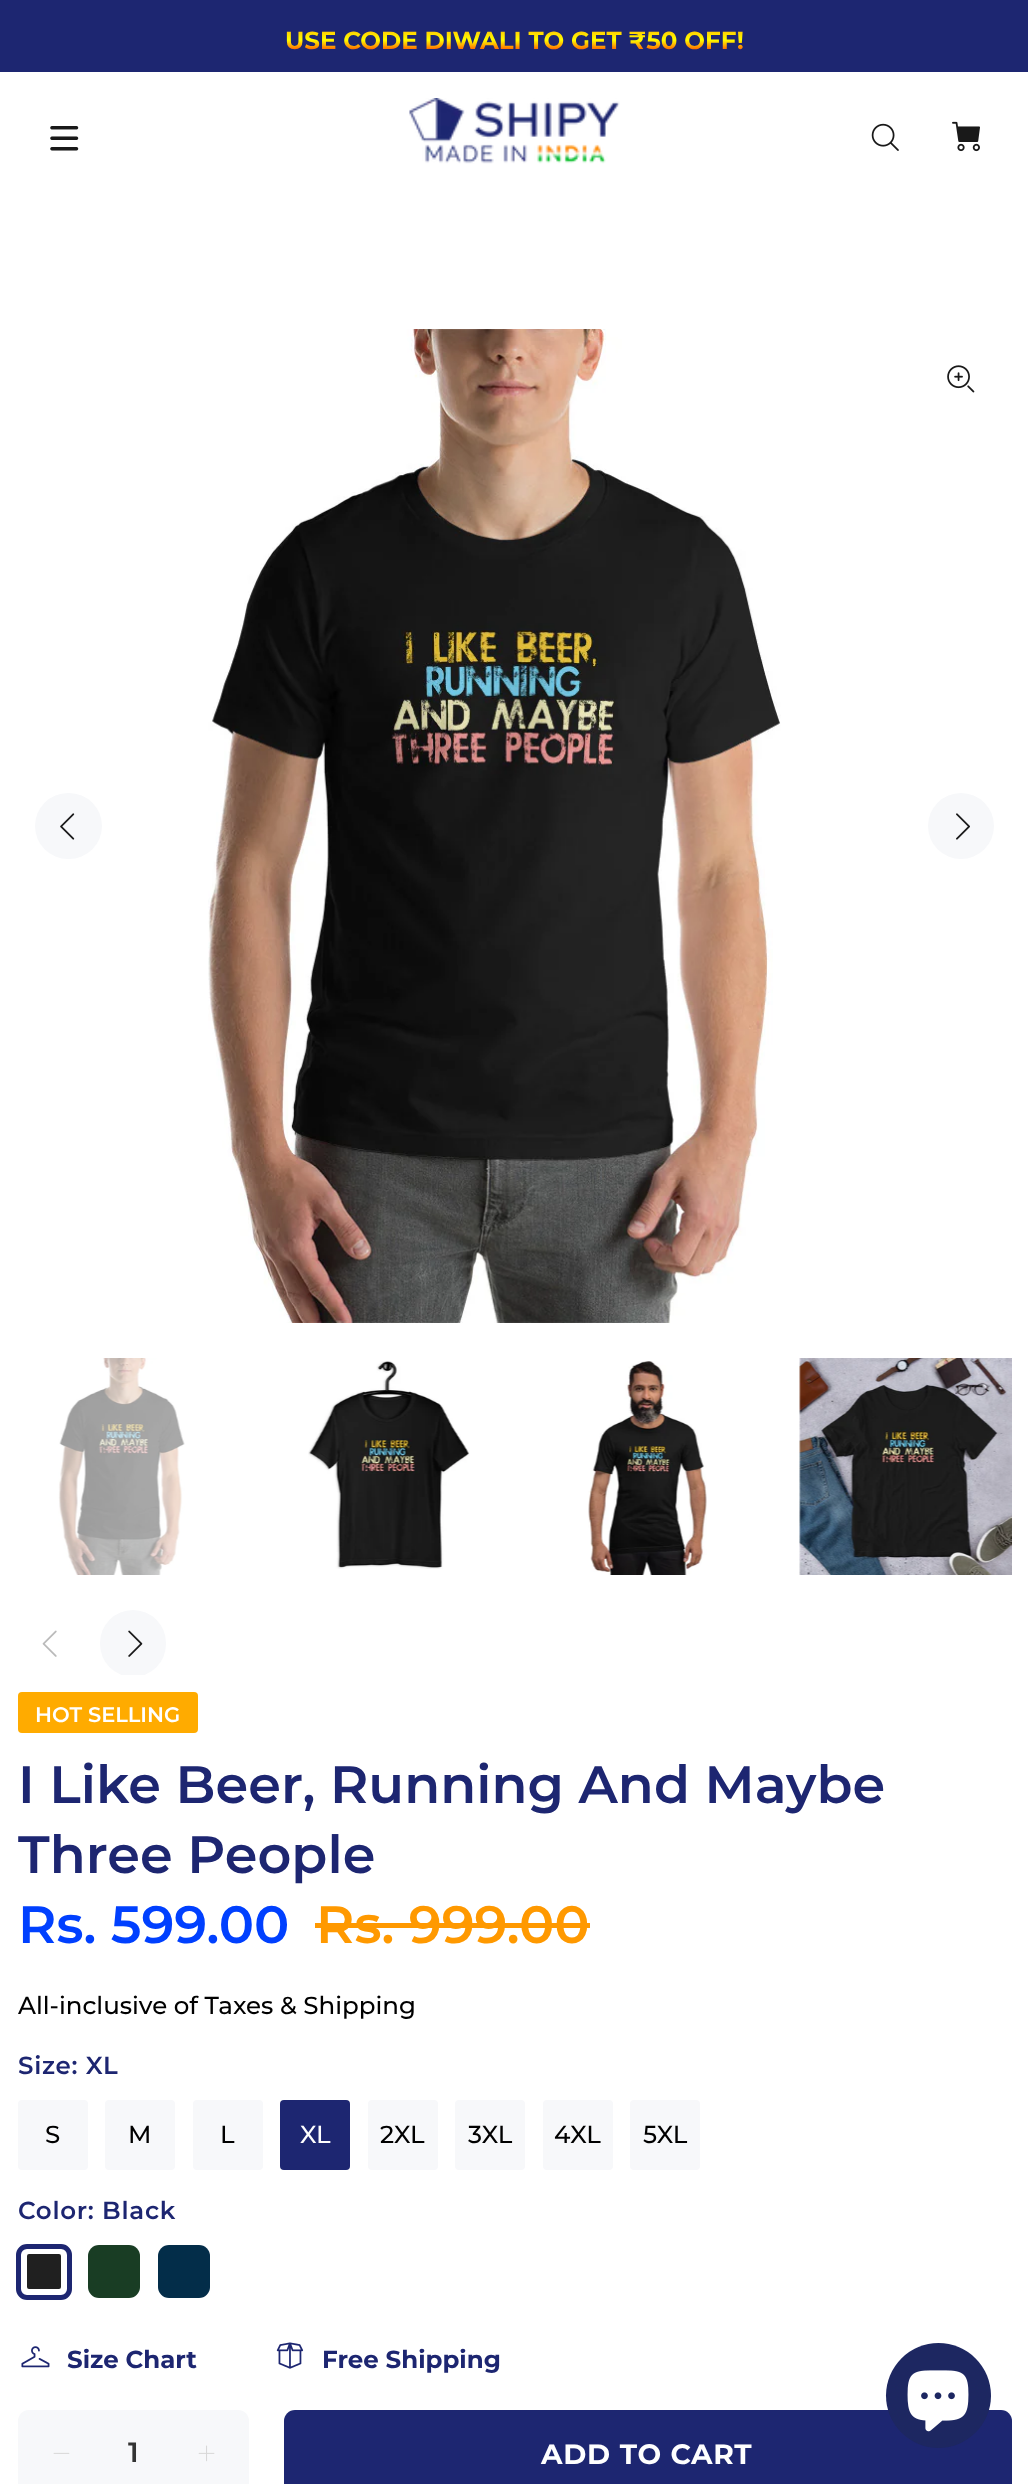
(async () => {
const canvas = document.querySelector("canvas")
canvas.width = 1028
canvas.height = 2484
const c = canvas.getContext("2d")
c.miterLimit = 4
c.fontKerning = "normal"
function T(s,x,y){c.fillText(s,x,y)}
function R(x,y,w,h){c.fillRect(x,y,w,h)}
function Q(x,y,w,h,r){c.beginPath();c.roundRect(x,y,w,h,r);c.fill()}
async function I(src,x,y,w,h){const img=new Image();img.src=src;await img.decode();c.drawImage(img,x,y,w,h)}
let gradient
c.fillStyle="#fff"
R(0,0,1028,2484)
c.fillStyle="#1d2671"
R(0,0,1028,72)
c.font="bold 24.5px Montserrat"
gradient = c.createLinearGradient(514,24,514,56)
gradient.addColorStop(0,"#ffa500")
gradient.addColorStop(.5,"#ff0")
gradient.addColorStop(1,"#f00")
c.fillStyle = gradient
T("USE CODE DIWALI TO GET ₹50 OFF!",285,49)
await I("1.png",50,126,29,25)
await I("2.png",409,98,211,66)
await I("3.png",871,123,28,28)
await I("4.png",952,121,28,31)
await I("5.png",208,329,573,994)
await I("6.png",947,365,28,28)
c.fillStyle="#f7f8fa"
Q(35,793,67,66,33)
await I("7.png",60,813,15,27)
c.beginPath()
c.arc(961,826,33,0,7)
c.fill()
await I("8.png",956,813,14,27)
await I("9.png",58,1358,127,217)
await I("10.png",308,1361,162,208)
await I("11.png",588,1361,119,214)
await I("12.png",799,1358,213,217)
await I("13.png",42,1630,15,27)
c.save()
c.beginPath()
c.rect(18,329,994,1346)
c.clip()
Q(100,1610,66,67,33)
c.restore()
await I("14.png",128,1630,15,27)
c.fillStyle="#ffab00"
Q(18,1692,180,41,4)
c.font="600 21px Montserrat"
c.fillStyle="#fff"
T("HOT SELLING",35,1722)
c.letterSpacing="0.05px"
c.font="600 52.5px Montserrat"
c.fillStyle="#1d2671"
T("I Like Beer, Running And Maybe",18,1803)
T("Three People",18,1873)
c.letterSpacing="0px"
c.fillStyle="#0040ff"
T("Rs. 599.00",18,1943)
c.fillStyle="#f90"
T("Rs. 999.00",316,1943)
R(315,1923,275,5)
c.font="500 24.5px Montserrat"
c.fillStyle="#000"
T("All-inclusive of Taxes & Shipping",18,2014)
c.letterSpacing="0.75px"
c.font="600 24.5px Montserrat"
c.fillStyle="#1d2671"
T("Size: XL",18,2074)
c.fillStyle="#f7f8fa"
Q(18,2100,70,70,4)
c.letterSpacing="0px"
c.font="500 24.5px Montserrat"
c.fillStyle="#000"
T("S",45,2143)
c.fillStyle="#f7f8fa"
Q(105,2100,70,70,4)
c.fillStyle="#000"
T("M",128,2143)
c.fillStyle="#f7f8fa"
Q(193,2100,70,70,4)
c.fillStyle="#000"
T("L",220,2143)
c.fillStyle="#1d2671"
Q(280,2100,70,70,4)
c.fillStyle="#fff"
T("XL",300,2143)
c.fillStyle="#f7f8fa"
Q(368,2100,70,70,4)
c.fillStyle="#000"
T("2XL",380,2143)
c.fillStyle="#f7f8fa"
Q(455,2100,70,70,4)
c.fillStyle="#000"
T("3XL",468,2143)
c.fillStyle="#f7f8fa"
Q(543,2100,70,70,4)
c.fillStyle="#000"
T("4XL",554,2143)
c.fillStyle="#f7f8fa"
Q(630,2100,70,70,4)
c.fillStyle="#000"
T("5XL",643,2143)
c.letterSpacing="0.75px"
c.font="600 24.5px Montserrat"
c.fillStyle="#1d2671"
T("Color: Black",18,2219)
c.fillStyle="#202020"
c.beginPath()
c.roundRect(22.5,2249.5,43,44,6.5)
c.fill()
c.strokeStyle="#fff"
c.lineWidth=9
c.stroke()
c.beginPath()
c.roundRect(18.5,2246.5,51,51,8.5)
c.strokeStyle="#1d2671"
c.lineWidth=5
c.stroke()
c.fillStyle="#193d24"
Q(88,2245,52,53,11)
c.fillStyle="#032d49"
Q(158,2245,52,53,11)
await I("15.png",21,2346,29,22)
c.letterSpacing="0px"
c.font="bold 24.5px Montserrat"
c.fillStyle="#1d2671"
T("Size Chart",67,2368)
await I("16.png",276,2342,28,27)
T("Free Shipping",322,2368)
c.fillStyle="#f7f8fa"
Q(18,2410,231,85,11)
await I("17.png",53,2452,17,2)
c.font="600 28px Montserrat"
c.fillStyle="#333"
T("1",128,2462)
await I("18.png",198,2445,17,17)
c.fillStyle="#1d2671"
Q(284,2410,728,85,11)
c.letterSpacing="0.75px"
c.font="bold 28px Montserrat"
c.fillStyle="#fff"
T("ADD TO CART",541,2464)
c.fillStyle="#1d2761"
c.beginPath()
c.arc(938.5,2395.5,52.5,0,7)
c.fill()
await I("19.png",907,2370,62,62)
})()
